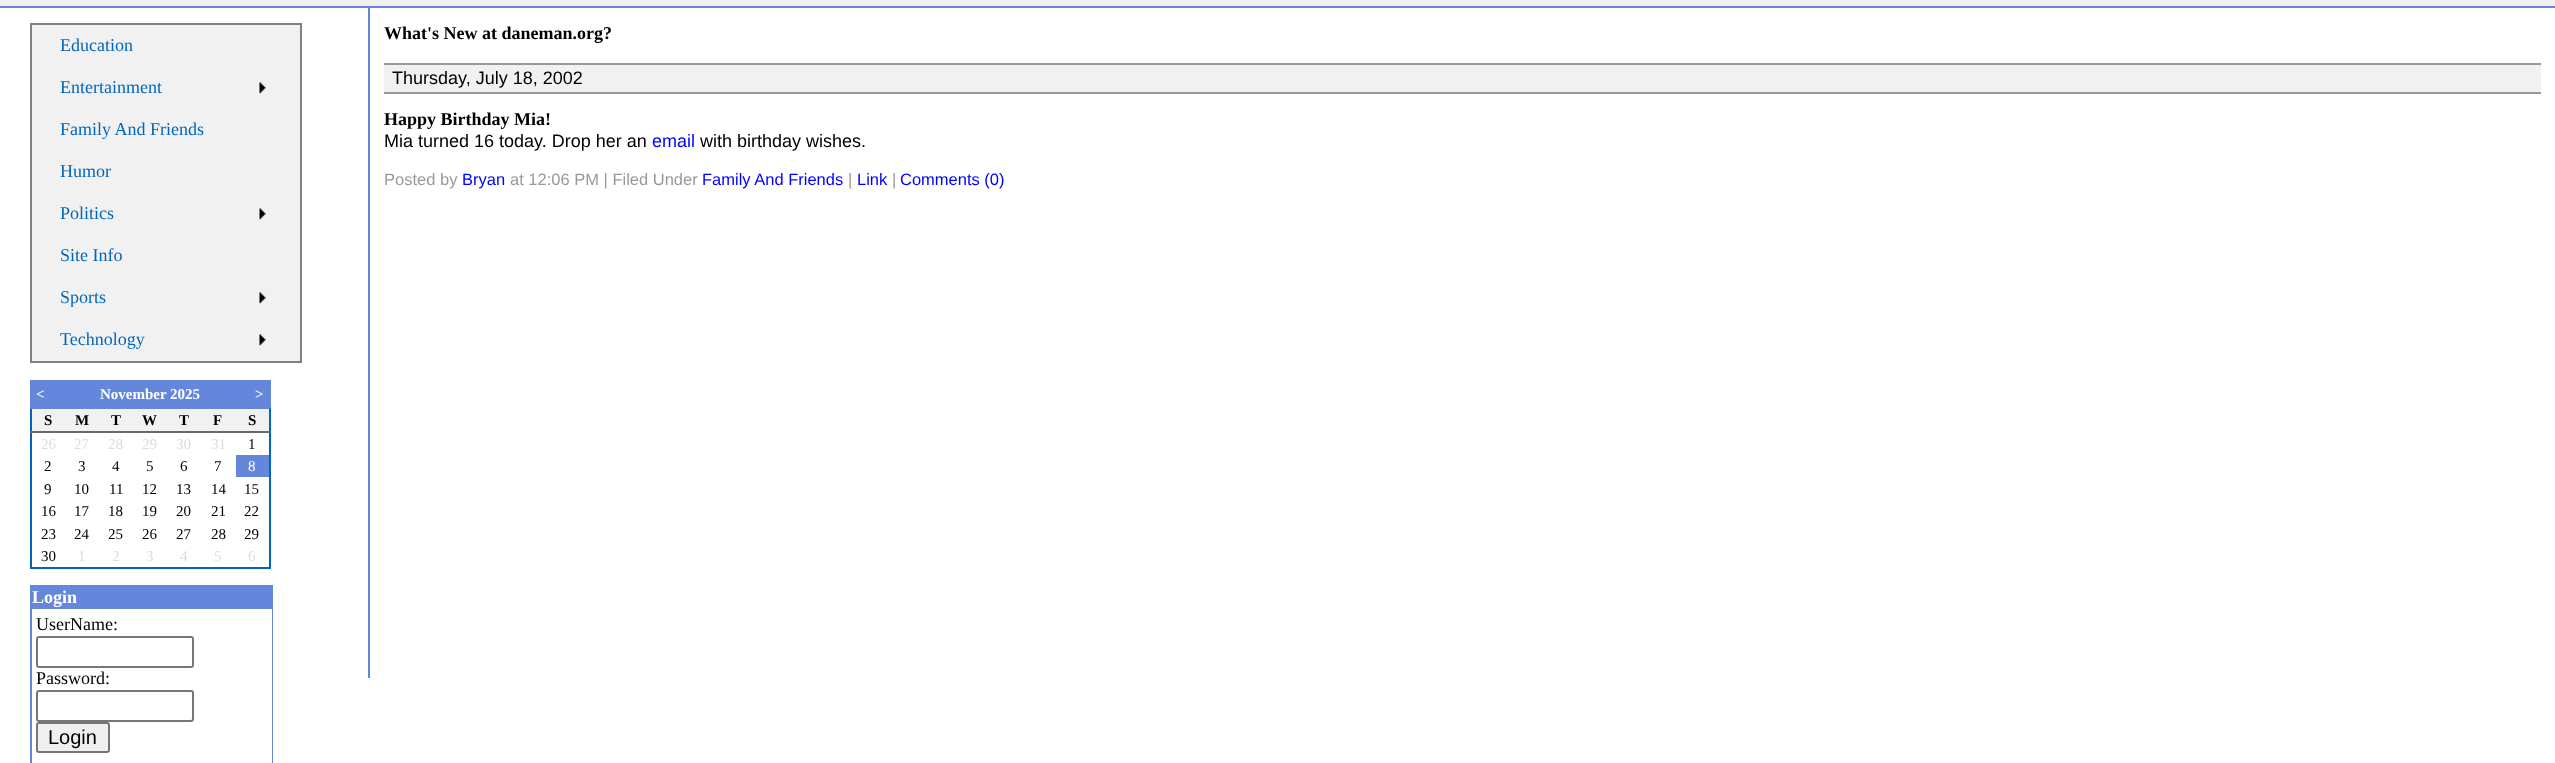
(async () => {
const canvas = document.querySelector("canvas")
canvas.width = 2555
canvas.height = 763
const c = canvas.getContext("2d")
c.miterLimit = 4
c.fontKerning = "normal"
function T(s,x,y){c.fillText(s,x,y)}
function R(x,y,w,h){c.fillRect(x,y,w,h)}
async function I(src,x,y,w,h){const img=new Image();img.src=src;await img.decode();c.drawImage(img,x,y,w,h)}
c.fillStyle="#fff"
R(0,0,2555,763)
c.fillStyle="#f1f1f1"
R(0,0,2555,6)
c.fillStyle="#6487dc"
R(0,6,2555,2)
R(368,8,2,670)
c.fillStyle="#f1f1f1"
c.beginPath()
c.rect(31,24,270,338)
c.fill()
c.strokeStyle="#808080"
c.lineWidth=2
c.stroke()
c.font="18px Liberation Serif"
c.fillStyle="#06b"
T("Education",60,51)
T("Entertainment",60,93)
await I("1.png",259,82,7,12)
T("Family And Friends",60,135)
T("Humor",60,177)
T("Politics",60,219)
await I("1.png",259,208,7,12)
T("Site Info",60,261)
T("Sports",60,303)
await I("1.png",259,292,7,12)
T("Technology",60,345)
await I("1.png",259,334,7,12)
R(269,408,2,161)
R(30,567,240,2)
R(30,409,2,160)
c.fillStyle="#6487dc"
R(32,382,237,25)
R(30,380,240,2)
R(269,380,2,28)
R(30,407,240,2)
R(30,380,2,28)
c.font="bold 15px Liberation Serif"
c.fillStyle="#fff"
T("<",36,399)
T("November 2025",100,399)
T(">",255,399)
c.fillStyle="#f1f1f1"
R(32,409,237,22)
c.fillStyle="#000"
T("S",44,425)
T("M",75,425)
T("T",111,425)
T("W",142,425)
T("T",179,425)
T("F",213,425)
c.fillStyle="#696969"
R(30,431,240,2)
c.fillStyle="#000"
T("S",248,425)
c.font="15px Liberation Serif"
c.fillStyle="#dcdcdc"
T("26",41,449)
T("27",74,449)
T("28",108,449)
T("29",142,449)
T("30",176,449)
T("31",211,449)
c.fillStyle="#000"
T("1",248,449)
T("2",44,471)
T("3",78,471)
T("4",112,471)
T("5",146,471)
T("6",180,471)
T("7",214,471)
c.fillStyle="#6487dc"
R(236,455,33,22)
c.fillStyle="#fff"
T("8",248,471)
c.fillStyle="#000"
T("9",44,494)
T("10",74,494)
T("11",109,494)
T("12",142,494)
T("13",176,494)
T("14",211,494)
T("15",244,494)
T("16",41,516)
T("17",74,516)
T("18",108,516)
T("19",142,516)
T("20",176,516)
T("21",211,516)
T("22",244,516)
T("23",41,539)
T("24",74,539)
T("25",108,539)
T("26",142,539)
T("27",176,539)
T("28",211,539)
T("29",244,539)
T("30",41,561)
c.fillStyle="#dcdcdc"
T("1",78,561)
T("2",112,561)
T("3",146,561)
T("4",180,561)
T("5",214,561)
T("6",248,561)
c.fillStyle="#6487dc"
R(30,585,243,178)
c.font="bold 18px Liberation Serif"
c.fillStyle="#fff"
T("Login",32,603)
R(32,609,240,154)
c.font="18px Liberation Serif"
c.fillStyle="#000"
T("UserName:",36,630)
c.beginPath()
c.roundRect(37,637,156,30,2)
c.strokeStyle="#767676"
c.stroke()
T("Password:",36,684)
c.beginPath()
c.roundRect(37,691,156,30,2)
c.stroke()
c.fillStyle="#efefef"
c.beginPath()
c.roundRect(37,723,72,29,2)
c.fill()
c.stroke()
c.font="20px Liberation Sans"
c.fillStyle="#000"
T("Login",48,744)
c.font="bold 18px Liberation Serif"
T("What's New at daneman.org?",384,39)
c.fillStyle="#f1f1f1"
R(384,65,2157,27)
c.fillStyle="#999"
R(384,63,2157,2)
R(384,92,2157,2)
c.font="18px Liberation Sans"
c.fillStyle="#000"
T("Thursday, July 18, 2002",392,84)
c.font="bold 18px Liberation Serif"
T("Happy Birthday Mia!",384,125)
c.font="18px Liberation Sans"
T("Mia turned 16 today. Drop her an",384,147)
c.fillStyle="#00f"
T("email",652,147)
c.fillStyle="#000"
T("with birthday wishes.",700,147)
c.font="16.5px Liberation Sans"
c.fillStyle="#999"
T("Posted by",384,185)
c.fillStyle="#00f"
T("Bryan",462,185)
c.fillStyle="#999"
T("at 12:06 PM | Filed Under",510,185)
c.fillStyle="#00f"
T("Family And Friends",702,185)
c.fillStyle="#999"
T("|",848,185)
c.fillStyle="#00f"
T("Link",857,185)
c.fillStyle="#999"
T("|",892,185)
c.fillStyle="#00f"
T("Comments (0)",900,185)
})()
